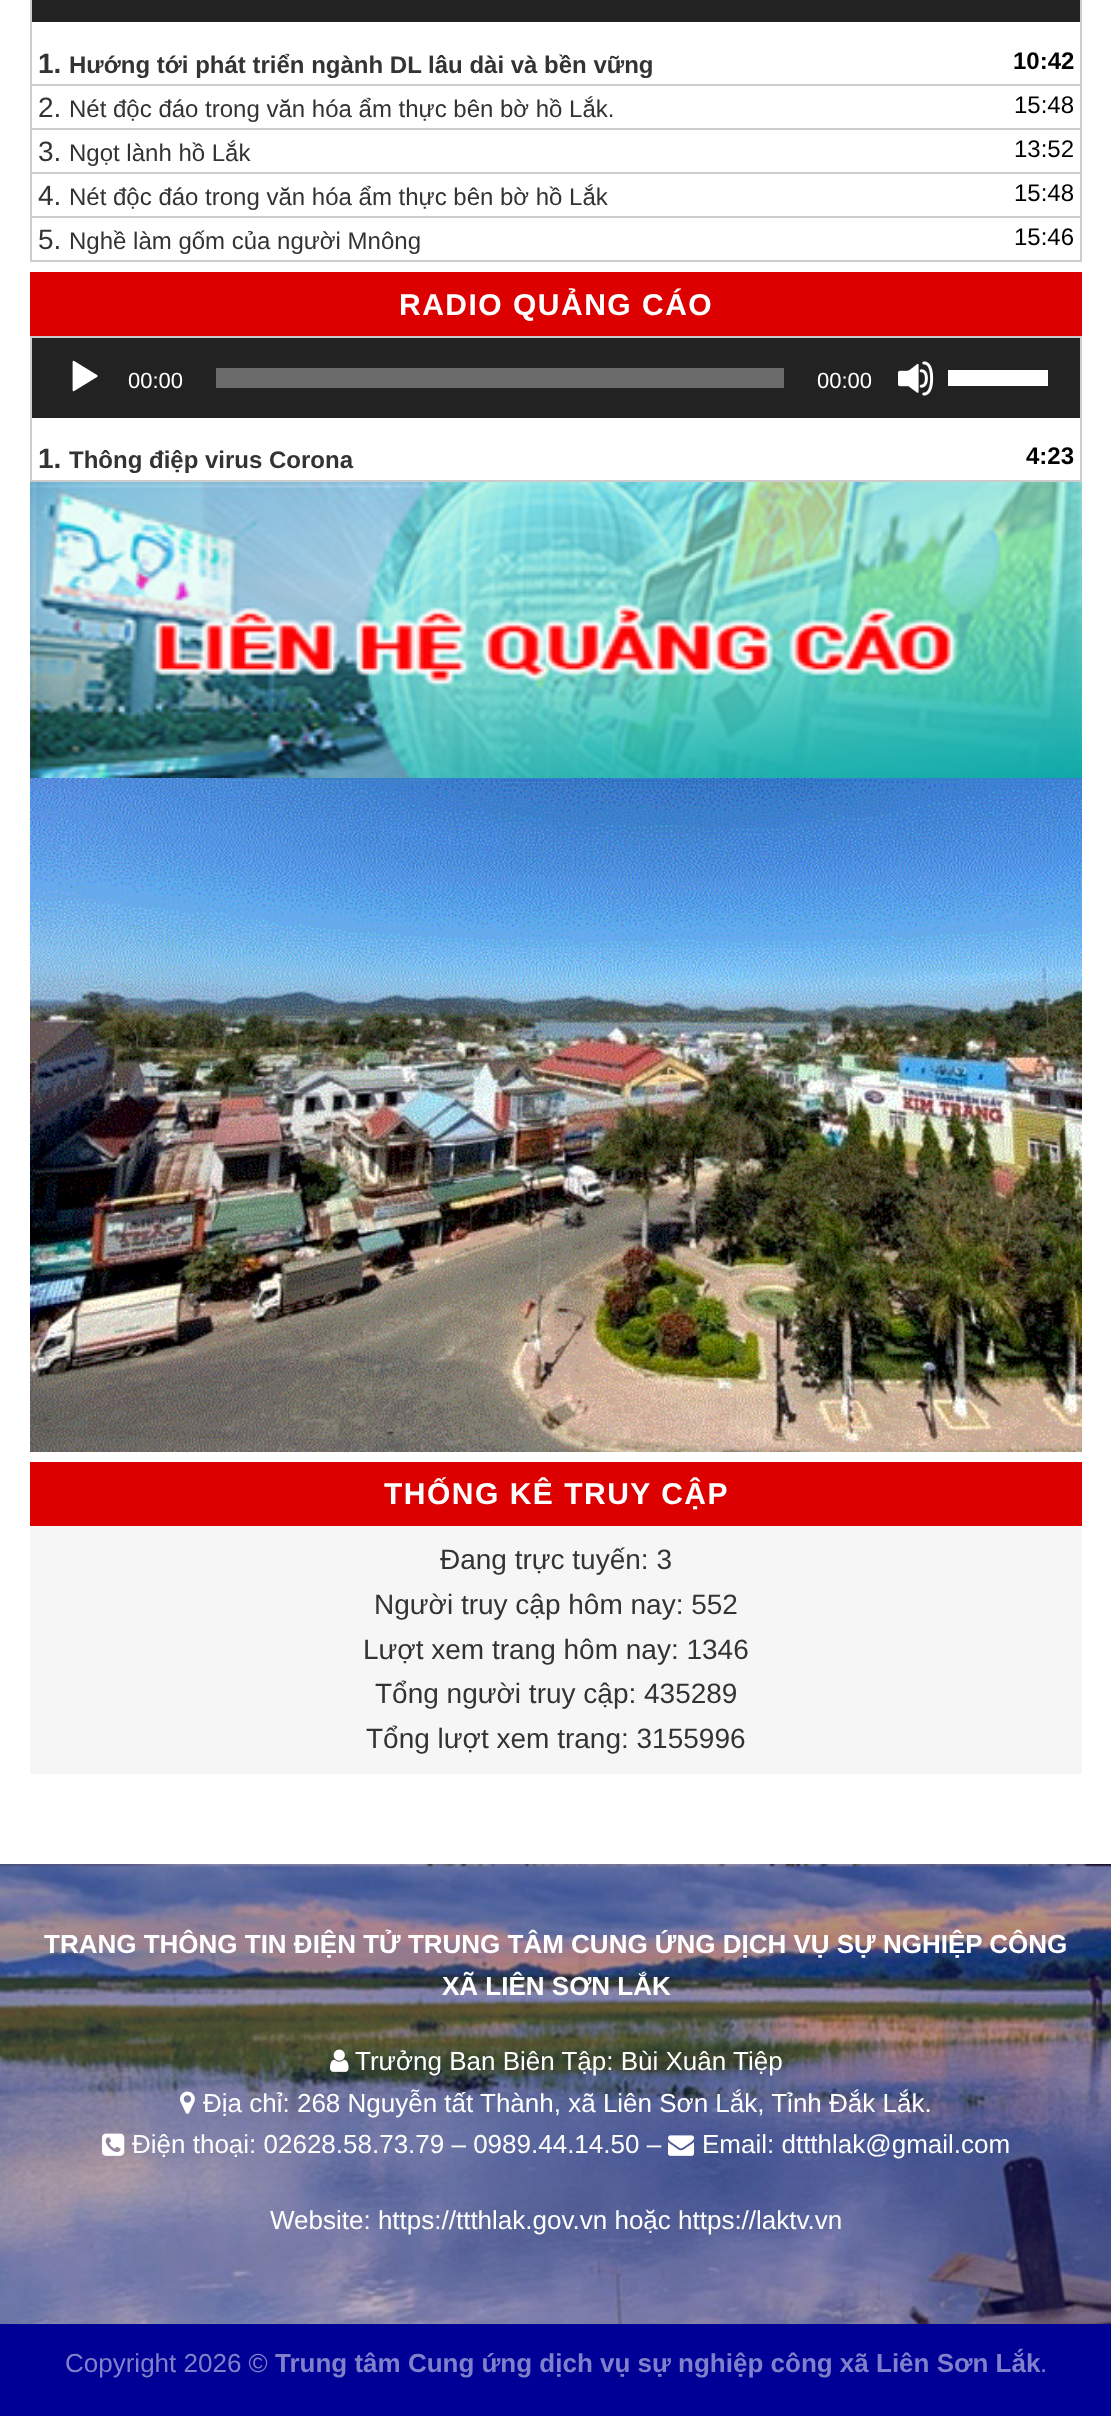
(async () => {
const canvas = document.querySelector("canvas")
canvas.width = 1111
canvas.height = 2416
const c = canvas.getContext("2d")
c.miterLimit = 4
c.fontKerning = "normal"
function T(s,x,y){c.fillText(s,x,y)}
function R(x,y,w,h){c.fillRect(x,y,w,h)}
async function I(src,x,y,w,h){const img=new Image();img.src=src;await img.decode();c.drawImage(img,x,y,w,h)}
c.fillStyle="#fff"
R(0,0,1111,2416)
c.strokeStyle="#ccc"
c.lineWidth=2
c.strokeRect(31,-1,1050,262)
c.fillStyle="#222"
R(32,0,1048,22)
c.fillStyle="#ccc"
R(32,84,1048,2)
c.font="bold 28px Liberation Sans"
c.fillStyle="#333"
T("1.",38,73)
c.font="bold 24px Liberation Sans"
T("Hướng tới phát triển ngành DL lâu dài và bền vững",69,73)
c.fillStyle="#000"
T("10:42",1013,69)
c.fillStyle="#ccc"
R(32,128,1048,2)
c.font="28px Liberation Sans"
c.fillStyle="#333"
T("2.",38,117)
c.font="24px Liberation Sans"
T("Nét độc đáo trong văn hóa ẩm thực bên bờ hồ Lắk.",69,117)
c.fillStyle="#000"
T("15:48",1014,113)
c.fillStyle="#ccc"
R(32,172,1048,2)
c.font="28px Liberation Sans"
c.fillStyle="#333"
T("3.",38,161)
c.font="24px Liberation Sans"
T("Ngọt lành hồ Lắk",69,161)
c.fillStyle="#000"
T("13:52",1014,157)
c.fillStyle="#ccc"
R(32,216,1048,2)
c.font="28px Liberation Sans"
c.fillStyle="#333"
T("4.",38,205)
c.font="24px Liberation Sans"
T("Nét độc đáo trong văn hóa ẩm thực bên bờ hồ Lắk",69,205)
c.fillStyle="#000"
T("15:48",1014,201)
c.font="28px Liberation Sans"
c.fillStyle="#333"
T("5.",38,249)
c.font="24px Liberation Sans"
T("Nghề làm gốm của người Mnông",69,249)
c.fillStyle="#000"
T("15:46",1014,245)
c.fillStyle="#dc0000"
R(30,272,1052,64)
c.letterSpacing="1.5px"
c.font="bold 30px Liberation Sans"
c.fillStyle="#fff"
T("RADIO QUẢNG CÁO",399,315)
c.strokeRect(31,337,1050,144)
c.fillStyle="#222"
R(32,338,1048,80)
await I("1.png",72,360,26,32)
c.letterSpacing="0px"
c.font="22px Liberation Sans"
c.fillStyle="#fff"
T("00:00",128,388)
c.fillStyle="#6b6b6b"
R(216,368,568,20)
c.fillStyle="#fff"
T("00:00",817,388)
await I("2.png",898,361,36,35)
R(948,370,100,16)
c.font="bold 28px Liberation Sans"
c.fillStyle="#333"
T("1.",38,468)
c.font="bold 24px Liberation Sans"
T("Thông điệp virus Corona",69,468)
c.fillStyle="#000"
T("4:23",1026,464)
await I("3.png",30,482,1052,296)
await I("4.png",30,778,1052,674)
c.fillStyle="#f6f6f6"
R(30,1526,1052,248)
c.fillStyle="#dc0000"
R(30,1462,1052,64)
c.letterSpacing="1.5px"
c.font="bold 30px Liberation Sans"
c.fillStyle="#fff"
T("THỐNG KÊ TRUY CẬP",384,1504)
c.letterSpacing="0px"
c.font="28px Liberation Sans"
c.fillStyle="#333"
T("Đang trực tuyến: 3",440,1569)
T("Người truy cập hôm nay: 552",374,1614)
T("Lượt xem trang hôm nay: 1346",363,1659)
T("Tổng người truy cập: 435289",375,1703)
T("Tổng lượt xem trang: 3155996",366,1748)
await I("5.png",0,1864,1111,460)
c.fillStyle="#0000000d"
R(0,1864,1111,2)
c.font="bold 26px Liberation Sans"
c.fillStyle="#fff"
T("TRANG THÔNG TIN ĐIỆN TỬ TRUNG TÂM CUNG ỨNG DỊCH VỤ SỰ NGHIỆP CÔNG",44,1953)
T("XÃ LIÊN SƠN LẮK",442,1995)
await I("6.png",330,2049,19,23)
c.font="26px Liberation Sans"
T("Trưởng Ban Biên Tập: Bùi Xuân Tiệp",355,2070)
await I("7.png",180,2091,15,23)
T("Địa chỉ: 268 Nguyễn tất Thành, xã Liên Sơn Lắk, Tỉnh Đắk Lắk.",203,2112)
await I("8.png",102,2133,23,23)
T("Điện thoại: 02628.58.73.79 – 0989.44.14.50 –",132,2153)
await I("9.png",668,2135,26,21)
T("Email: dttthlak@gmail.com",702,2153)
T("Website: https://ttthlak.gov.vn hoặc https://laktv.vn",270,2229)
c.fillStyle="#000096"
R(0,2324,1111,92)
c.fillStyle="#8080cb"
T("Copyright 2026 ©",65,2372)
c.font="bold 26px Liberation Sans"
T("Trung tâm Cung ứng dịch vụ sự nghiệp công xã Liên Sơn Lắk",275,2372)
c.font="26px Liberation Sans"
T(".",1040,2372)
})()
